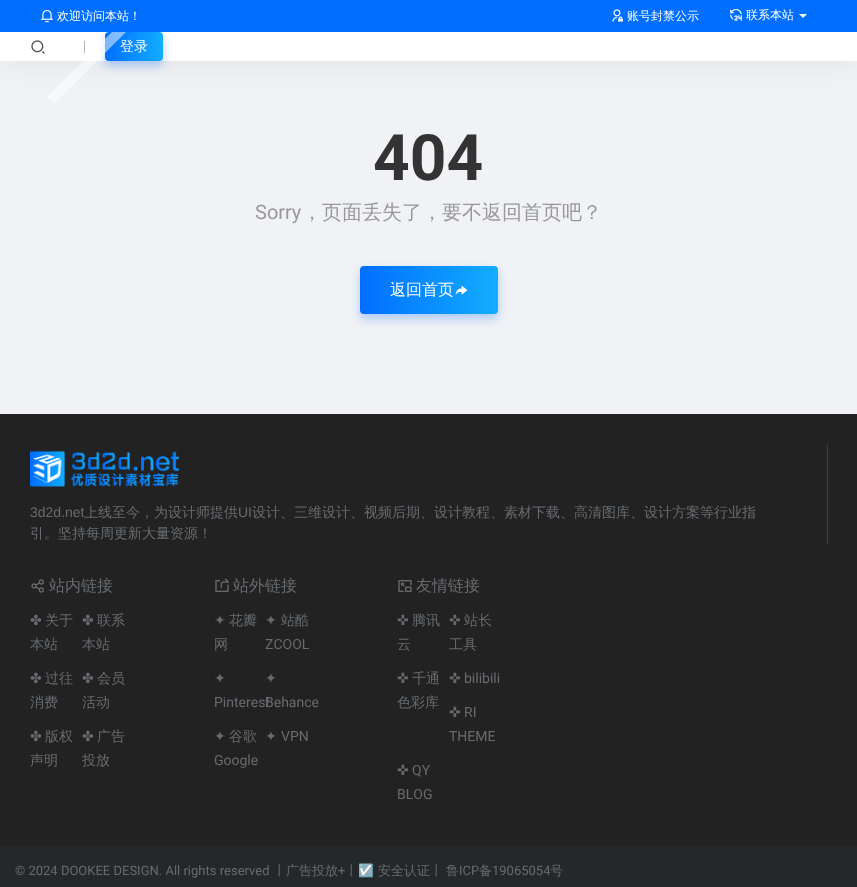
(async () => {
const canvas = document.querySelector("canvas")
canvas.width = 857
canvas.height = 887
const c = canvas.getContext("2d")
c.miterLimit = 4
c.fontKerning = "none"
function T(s,x,y){c.fillText(s,x,y)}
function R(x,y,w,h){c.fillRect(x,y,w,h)}
function Q(x,y,w,h,r){c.beginPath();c.roundRect(x,y,w,h,r);c.fill()}
async function I(src,x,y,w,h){const img=new Image();img.src=src;await img.decode();c.drawImage(img,x,y,w,h)}
let gradient, path
c.fillStyle="#f0f2f5"
R(0,0,857,887)
c.fillStyle="#00000012"
c.filter="blur(15px)"
c.beginPath()
c.rect(0,32,857,29)
c.fill()
c.filter="none"
c.fillStyle="#fff"
R(0,32,857,29)
c.fillStyle="#b3b3b3"
R(84,41,1,12)
c.fillStyle="#106efd4d"
c.filter="blur(5px)"
c.beginPath()
c.roundRect(105,37,58,29,4)
c.fill()
c.filter="none"
gradient = c.createLinearGradient(105,47,163,47)
gradient.addColorStop(0,"#006eff")
gradient.addColorStop(1,"#13adff")
c.fillStyle = gradient
Q(105,32,58,29,4)
c.font="500 14px WenQuanYi Zen Hei"
c.fillStyle="#fff"
T("登录",120,51)
c.fillStyle="#ffffff80"
path = new Path2D("M47 97l98-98l7 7l-98 98z")
c.fill(path)
c.fillStyle="#006eff"
R(0,0,857,32)
await I("1.png",41,9,12,14)
c.font="500 12px WenQuanYi Zen Hei"
c.fillStyle="#fff"
T("欢迎访问本站！",57,20)
await I("2.png",612,9,11,13)
T("账号封禁公示",627,20)
await I("3.png",730,8,12,13)
T("联系本站",746,19)
path = new Path2D("M799 14h8l-4 4z")
c.fill(path)
await I("4.png",31,40,14,14)
c.font="bold 64px Roboto"
c.fillStyle="#333"
T("404",373,180)
c.font="20px Roboto"
c.fillStyle="#999"
T("Sorry",255,219)
c.font="500 20px WenQuanYi Zen Hei"
T("，页面丢失了，要不返回首页吧？",302,219)
c.fillStyle="#106efd4d"
c.filter="blur(5px)"
c.beginPath()
c.roundRect(360,271,138,48,4)
c.fill()
c.filter="none"
gradient = c.createLinearGradient(360,290,498,290)
gradient.addColorStop(0,"#006eff")
gradient.addColorStop(1,"#13adff")
c.fillStyle = gradient
Q(360,266,138,48,4)
c.font="500 16px WenQuanYi Zen Hei"
c.fillStyle="#fff"
T("返回首页",390,295)
await I("5.png",455,285,13,10)
c.fillStyle="#222"
R(0,414,857,432)
await I("6.png",30,450,149,37)
c.fillStyle="#393c40"
c.filter="blur(0.5px)"
c.beginPath()
c.rect(827,444,1,100)
c.fill()
c.filter="none"
c.fillStyle="#25282a"
R(826,444,1,100)
c.font="14px Liberation Sans"
c.fillStyle="#676b6f"
T("3d2d.net",30,517)
c.font="500 14px WenQuanYi Zen Hei"
T("上线至今，为设计师提供",84,517)
c.font="14px Liberation Sans"
T("UI",238,517)
c.font="500 14px WenQuanYi Zen Hei"
T("设计、三维设计、视频后期、设计教程、素材下载、高清图库、设计方案等行业指",252,517)
T("引。坚持每周更新大量资源！",30,538)
await I("7.png",31,579,13,14)
c.font="500 16px WenQuanYi Zen Hei"
T("站内链接",49,591)
c.font="14px DejaVu Sans"
T("✤",30,625)
c.font="500 14px WenQuanYi Zen Hei"
T("关于",45,625)
T("本站",30,649)
c.font="14px DejaVu Sans"
T("✤",82,625)
c.font="500 14px WenQuanYi Zen Hei"
T("联系",97,625)
T("本站",82,649)
c.font="14px DejaVu Sans"
T("✤",30,683)
c.font="500 14px WenQuanYi Zen Hei"
T("过往",45,683)
T("消费",30,707)
c.font="14px DejaVu Sans"
T("✤",82,683)
c.font="500 14px WenQuanYi Zen Hei"
T("会员",97,683)
T("活动",82,707)
c.font="14px DejaVu Sans"
T("✤",30,741)
c.font="500 14px WenQuanYi Zen Hei"
T("版权",45,741)
T("声明",30,765)
c.font="14px DejaVu Sans"
T("✤",82,741)
c.font="500 14px WenQuanYi Zen Hei"
T("广告",97,741)
T("投放",82,765)
await I("8.png",215,578,15,14)
c.font="500 16px WenQuanYi Zen Hei"
T("站外链接",233,591)
c.font="14px DejaVu Sans"
T("✦",214,625)
c.font="500 14px WenQuanYi Zen Hei"
T("花瓣",229,625)
T("网",214,649)
c.font="14px DejaVu Sans"
T("✦",265,625)
c.font="500 14px WenQuanYi Zen Hei"
T("站酷",281,625)
c.font="14px Roboto"
T("ZCOOL",265,649)
c.font="14px DejaVu Sans"
T("✦",214,683)
c.font="14px Roboto"
T("Pinterest",214,707)
c.font="14px DejaVu Sans"
T("✦",265,683)
c.font="14px Roboto"
T("Behance",265,707)
c.font="14px DejaVu Sans"
T("✦",214,741)
c.font="500 14px WenQuanYi Zen Hei"
T("谷歌",229,741)
c.font="14px Roboto"
T("Google",214,765)
c.font="14px DejaVu Sans"
T("✦",265,741)
c.font="14px Roboto"
T("VPN",281,741)
await I("9.png",398,580,14,12)
c.font="500 16px WenQuanYi Zen Hei"
T("友情链接",416,591)
c.font="14px DejaVu Sans"
T("✜",397,625)
c.font="500 14px WenQuanYi Zen Hei"
T("腾讯",412,625)
T("云",397,649)
c.font="14px DejaVu Sans"
T("✜",449,625)
c.font="500 14px WenQuanYi Zen Hei"
T("站长",464,625)
T("工具",449,649)
c.font="14px DejaVu Sans"
T("✜",397,683)
c.font="500 14px WenQuanYi Zen Hei"
T("千通",412,683)
T("色彩库",397,707)
c.font="14px DejaVu Sans"
T("✜",449,683)
c.font="14px Roboto"
T("bilibili",464,683)
c.font="14px DejaVu Sans"
T("✜",449,717)
c.font="14px Roboto"
T("RI",464,717)
T("THEME",449,741)
c.font="14px DejaVu Sans"
T("✜",397,775)
c.font="14px Roboto"
T("QY",412,775)
T("BLOG",397,799)
c.fillStyle="#25282a"
R(0,846,857,41)
c.font="13px Roboto"
c.fillStyle="#676b6f"
T("© 2024 DOOKEE DESIGN. All rights reserved",15,875)
c.font="500 13px WenQuanYi Zen Hei"
T("丨广告投放",273,875)
c.font="13px Roboto"
T("+",338,875)
c.font="500 13px WenQuanYi Zen Hei"
T("丨",345,875)
c.font="13px Noto Color Emoji"
T("☑",358,875)
c.font="500 13px WenQuanYi Zen Hei"
T("安全认证丨",378,875)
T("鲁",446,875)
c.font="13px Roboto"
T("ICP",459,875)
c.font="500 13px WenQuanYi Zen Hei"
T("备",479,875)
c.font="13px Roboto"
T("19065054",492,875)
c.font="500 13px WenQuanYi Zen Hei"
T("号",550,875)
})()
